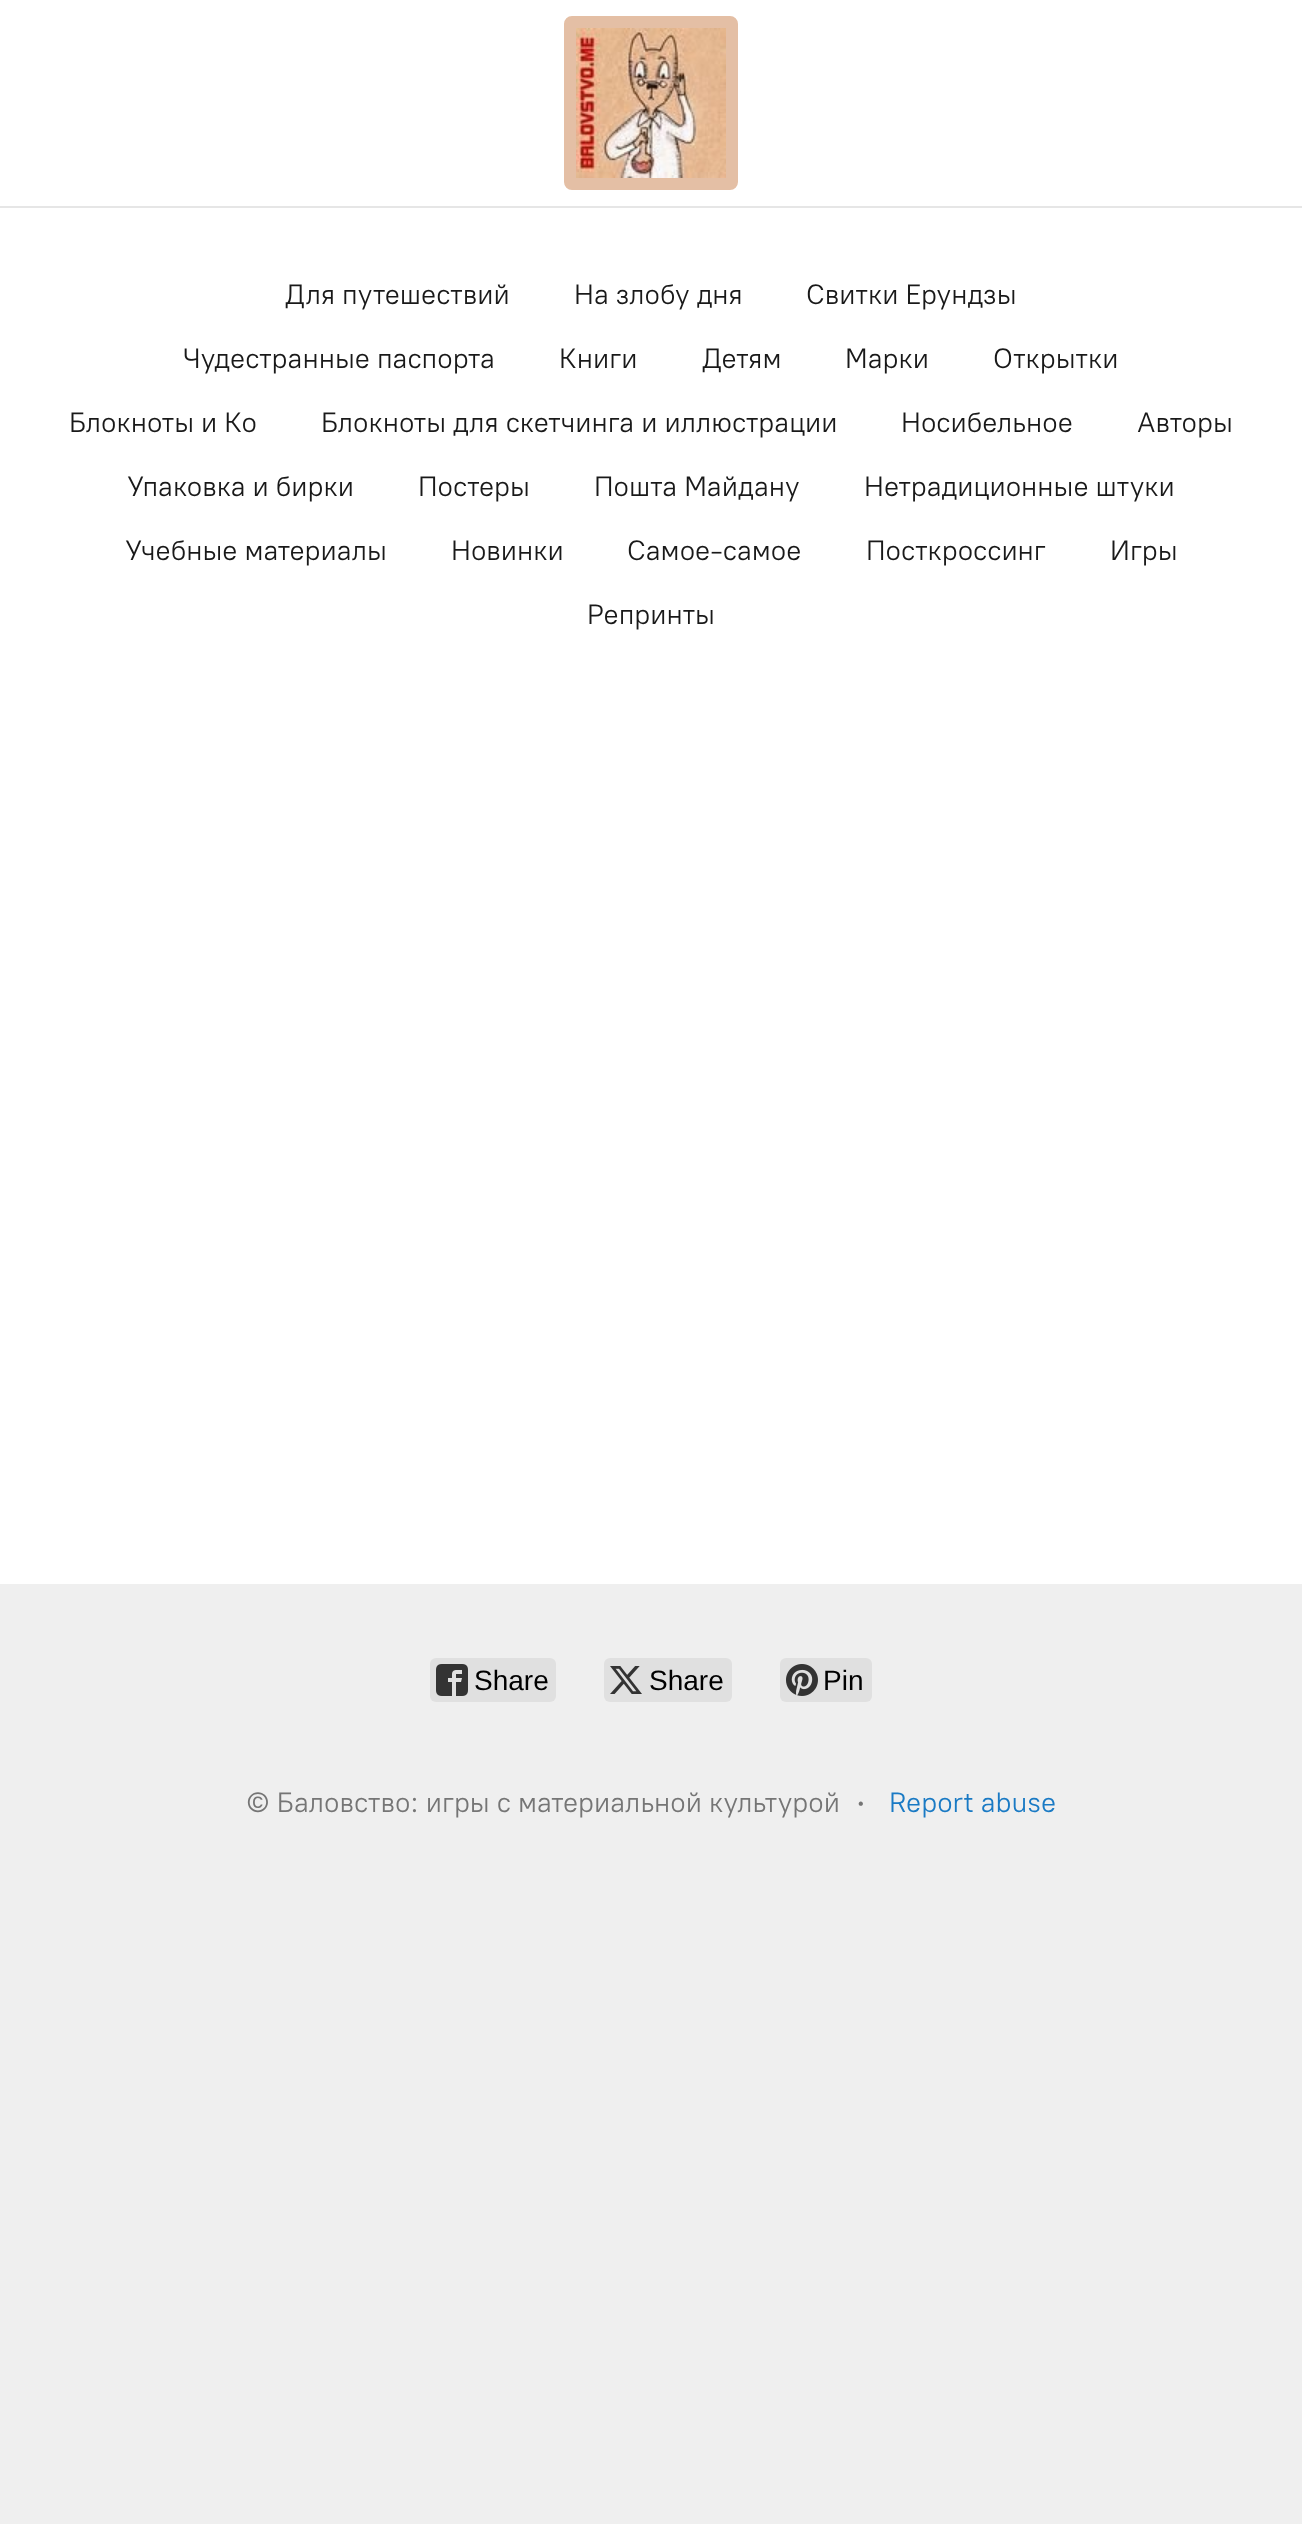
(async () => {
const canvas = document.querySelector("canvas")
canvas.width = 1302
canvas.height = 2524
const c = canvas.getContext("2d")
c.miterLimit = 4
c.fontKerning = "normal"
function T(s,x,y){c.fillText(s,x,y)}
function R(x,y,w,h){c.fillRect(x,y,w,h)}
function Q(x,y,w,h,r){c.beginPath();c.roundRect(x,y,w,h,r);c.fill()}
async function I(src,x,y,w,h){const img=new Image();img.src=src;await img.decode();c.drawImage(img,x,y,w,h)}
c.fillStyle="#efefef"
R(0,0,1302,2524)
c.fillStyle="#fff"
R(0,0,1302,1584)
c.fillStyle="#e6e6e6"
R(0,206,1302,2)
c.beginPath()
c.roundRect(570,22,162,162,2)
c.strokeStyle="#e4bfa5"
c.lineWidth=12
c.stroke()
await I("1.png",576,28,150,150)
c.font="28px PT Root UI"
c.fillStyle="#191919"
T("Для путешествий",285,304)
T("На злобу дня",574,304)
T("Свитки Ерундзы",806,304)
T("Чудестранные паспорта",183,368)
T("Книги",559,368)
T("Детям",702,368)
T("Марки",845,368)
T("Открытки",993,368)
T("Блокноты и Ко",69,432)
T("Блокноты для скетчинга и иллюстрации",321,432)
T("Носибельное",901,432)
T("Авторы",1137,432)
T("Упаковка и бирки",127,496)
T("Постеры",418,496)
T("Пошта Майдану",594,496)
T("Нетрадиционные штуки",864,496)
T("Учебные материалы",125,560)
T("Новинки",451,560)
T("Самое-самое",627,560)
T("Посткроссинг",866,560)
T("Игры",1110,560)
T("Репринты",587,624)
c.fillStyle="#e0e0e0"
Q(430,1658,126,44,6)
await I("2.png",436,1664,32,32)
c.font="28px Liberation Sans"
c.fillStyle="#000"
T("Share",474,1690)
c.fillStyle="#e0e0e0"
Q(604,1658,128,44,6)
await I("3.png",610,1666,32,28)
c.fillStyle="#000"
T("Share",649,1690)
c.fillStyle="#e0e0e0"
Q(780,1658,92,44,6)
await I("4.png",786,1664,32,32)
c.fillStyle="#000"
T("Pin",823,1690)
c.font="28px PT Root UI"
c.fillStyle="#757575"
T("© Баловство: игры с материальной культурой",246,1812)
c.font="500 32px PT Root UI"
T("·",856,1812)
c.font="28px PT Root UI"
c.fillStyle="#1a7ac4"
T("Report abuse",889,1812)
})()
